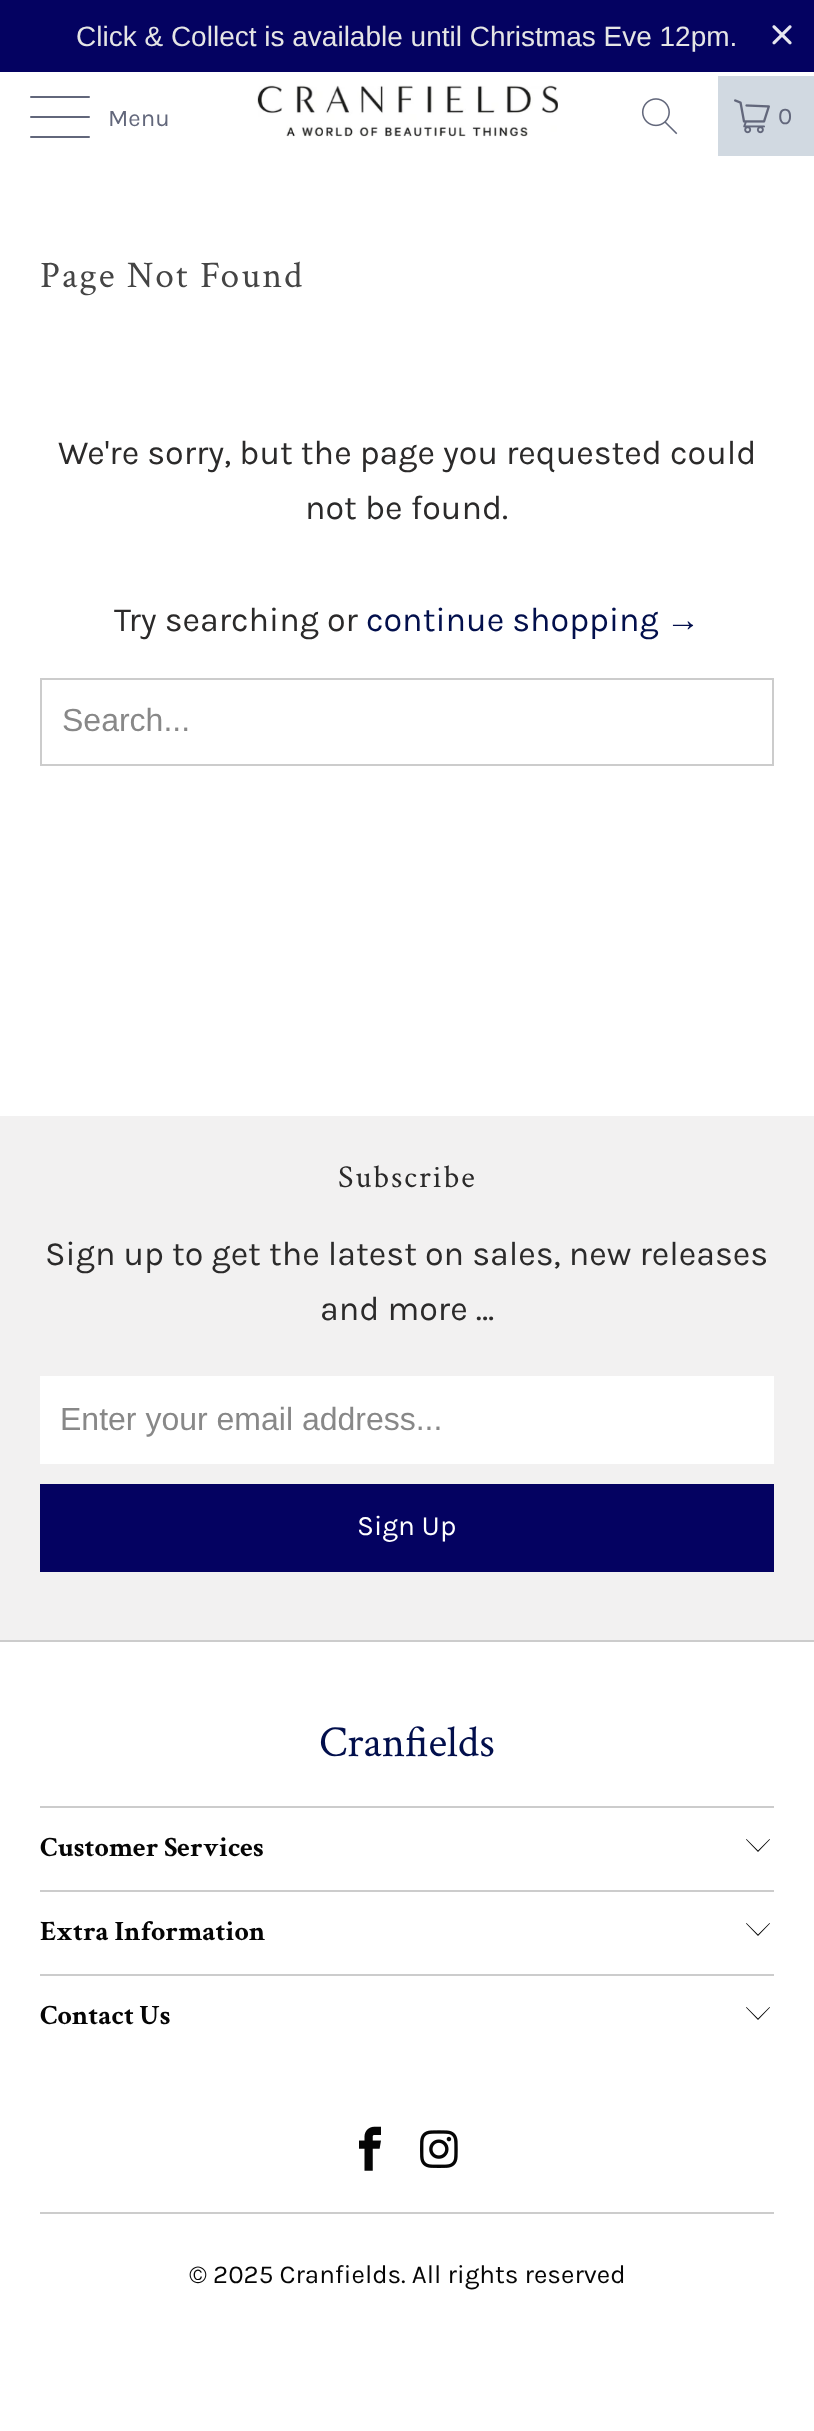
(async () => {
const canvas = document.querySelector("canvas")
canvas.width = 814
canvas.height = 2431
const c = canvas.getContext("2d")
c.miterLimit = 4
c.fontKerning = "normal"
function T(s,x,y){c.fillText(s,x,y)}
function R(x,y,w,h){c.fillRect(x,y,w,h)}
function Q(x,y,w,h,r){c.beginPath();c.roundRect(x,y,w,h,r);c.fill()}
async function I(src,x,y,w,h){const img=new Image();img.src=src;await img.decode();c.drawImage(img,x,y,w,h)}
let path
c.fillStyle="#fff"
R(0,0,814,2431)
c.fillStyle="#040261"
R(0,0,814,72)
c.font="28px Liberation Sans"
c.fillStyle="#e5e5e5"
T("Click & Collect is available until Christmas Eve 12pm.",76,46)
await I("1.png",772,25,20,20)
c.fillStyle="#62677b"
Q(30,96,60,2,1)
Q(30,116,60,2,1)
Q(30,136,60,2,1)
c.font="24px Karla"
T("Menu",108,126)
await I("2.png",257,85,301,52)
await I("3.png",641,98,37,37)
c.fillStyle="#d1d9e1"
R(718,76,96,80)
await I("4.png",734,99,36,35)
c.letterSpacing="2px"
c.fillStyle="#62677b"
T("0",778,124)
c.font="37.5px Crimson Text"
c.fillStyle="#454545"
T("Page Not Found",40,287)
c.letterSpacing="0px"
c.font="34px Karla"
c.fillStyle="#2b2a2a"
T("We're sorry, but the page you requested could",58,464)
T("not be found.",305,519)
T("Try searching or",114,631)
c.fillStyle="#020f4c"
T("continue shopping",366,631)
c.font="34px Liberation Sans"
T("→",666,631)
c.strokeStyle="#ccc"
c.lineWidth=2
c.strokeRect(41,679,732,86)
c.font="32px Liberation Sans"
c.fillStyle="#888"
T("Search...",62,731)
c.fillStyle="#f2f1f1"
R(0,1116,814,524)
c.letterSpacing="2px"
c.font="32px Crimson Text"
c.fillStyle="#2b2a2a"
T("Subscribe",338,1187)
c.letterSpacing="0px"
c.font="34px Karla"
T("Sign up to get the latest on sales, new releases",45,1265)
T("and more …",320,1320)
c.fillStyle="#fff"
R(40,1376,734,88)
c.font="32px Liberation Sans"
c.fillStyle="#888"
T("Enter your email address...",60,1430)
c.fillStyle="#040261"
R(40,1484,734,88)
c.font="28px Karla"
c.fillStyle="#fff"
T("Sign Up",357,1535)
c.fillStyle="#ccc"
R(0,1640,814,2)
c.font="44px Crimson Text"
c.fillStyle="#020f4c"
T("Cranfields",319,1756)
c.fillStyle="#ccc"
R(40,1806,734,2)
c.font="bold 28px Crimson Text"
c.fillStyle="#050505"
T("Customer Services",40,1856)
path = new Path2D("M758 1852l-12-12.5l.5-.5l11.5 11.5l11.5-11.5l.5 .5z")
c.fill(path)
c.fillStyle="#ccc"
R(40,1890,734,2)
c.fillStyle="#050505"
T("Extra Information",40,1940)
path = new Path2D("M758 1936l-12-12.5l.5-.5l11.5 11.5l11.5-11.5l.5 .5z")
c.fill(path)
c.fillStyle="#ccc"
R(40,1974,734,2)
c.fillStyle="#050505"
T("Contact Us",40,2024)
path = new Path2D("M758 2020l-12-12.5l.5-.5l11.5 11.5l11.5-11.5l.5 .5z")
c.fill(path)
await I("5.png",359,2126,22,45)
await I("6.png",420,2130,38,38)
c.fillStyle="#ccc"
R(40,2212,734,2)
c.font="26px Karla"
c.fillStyle="#050505"
T("© 2025 Cranfields",189,2283)
T(". All rights reserved",401,2283)
})()
